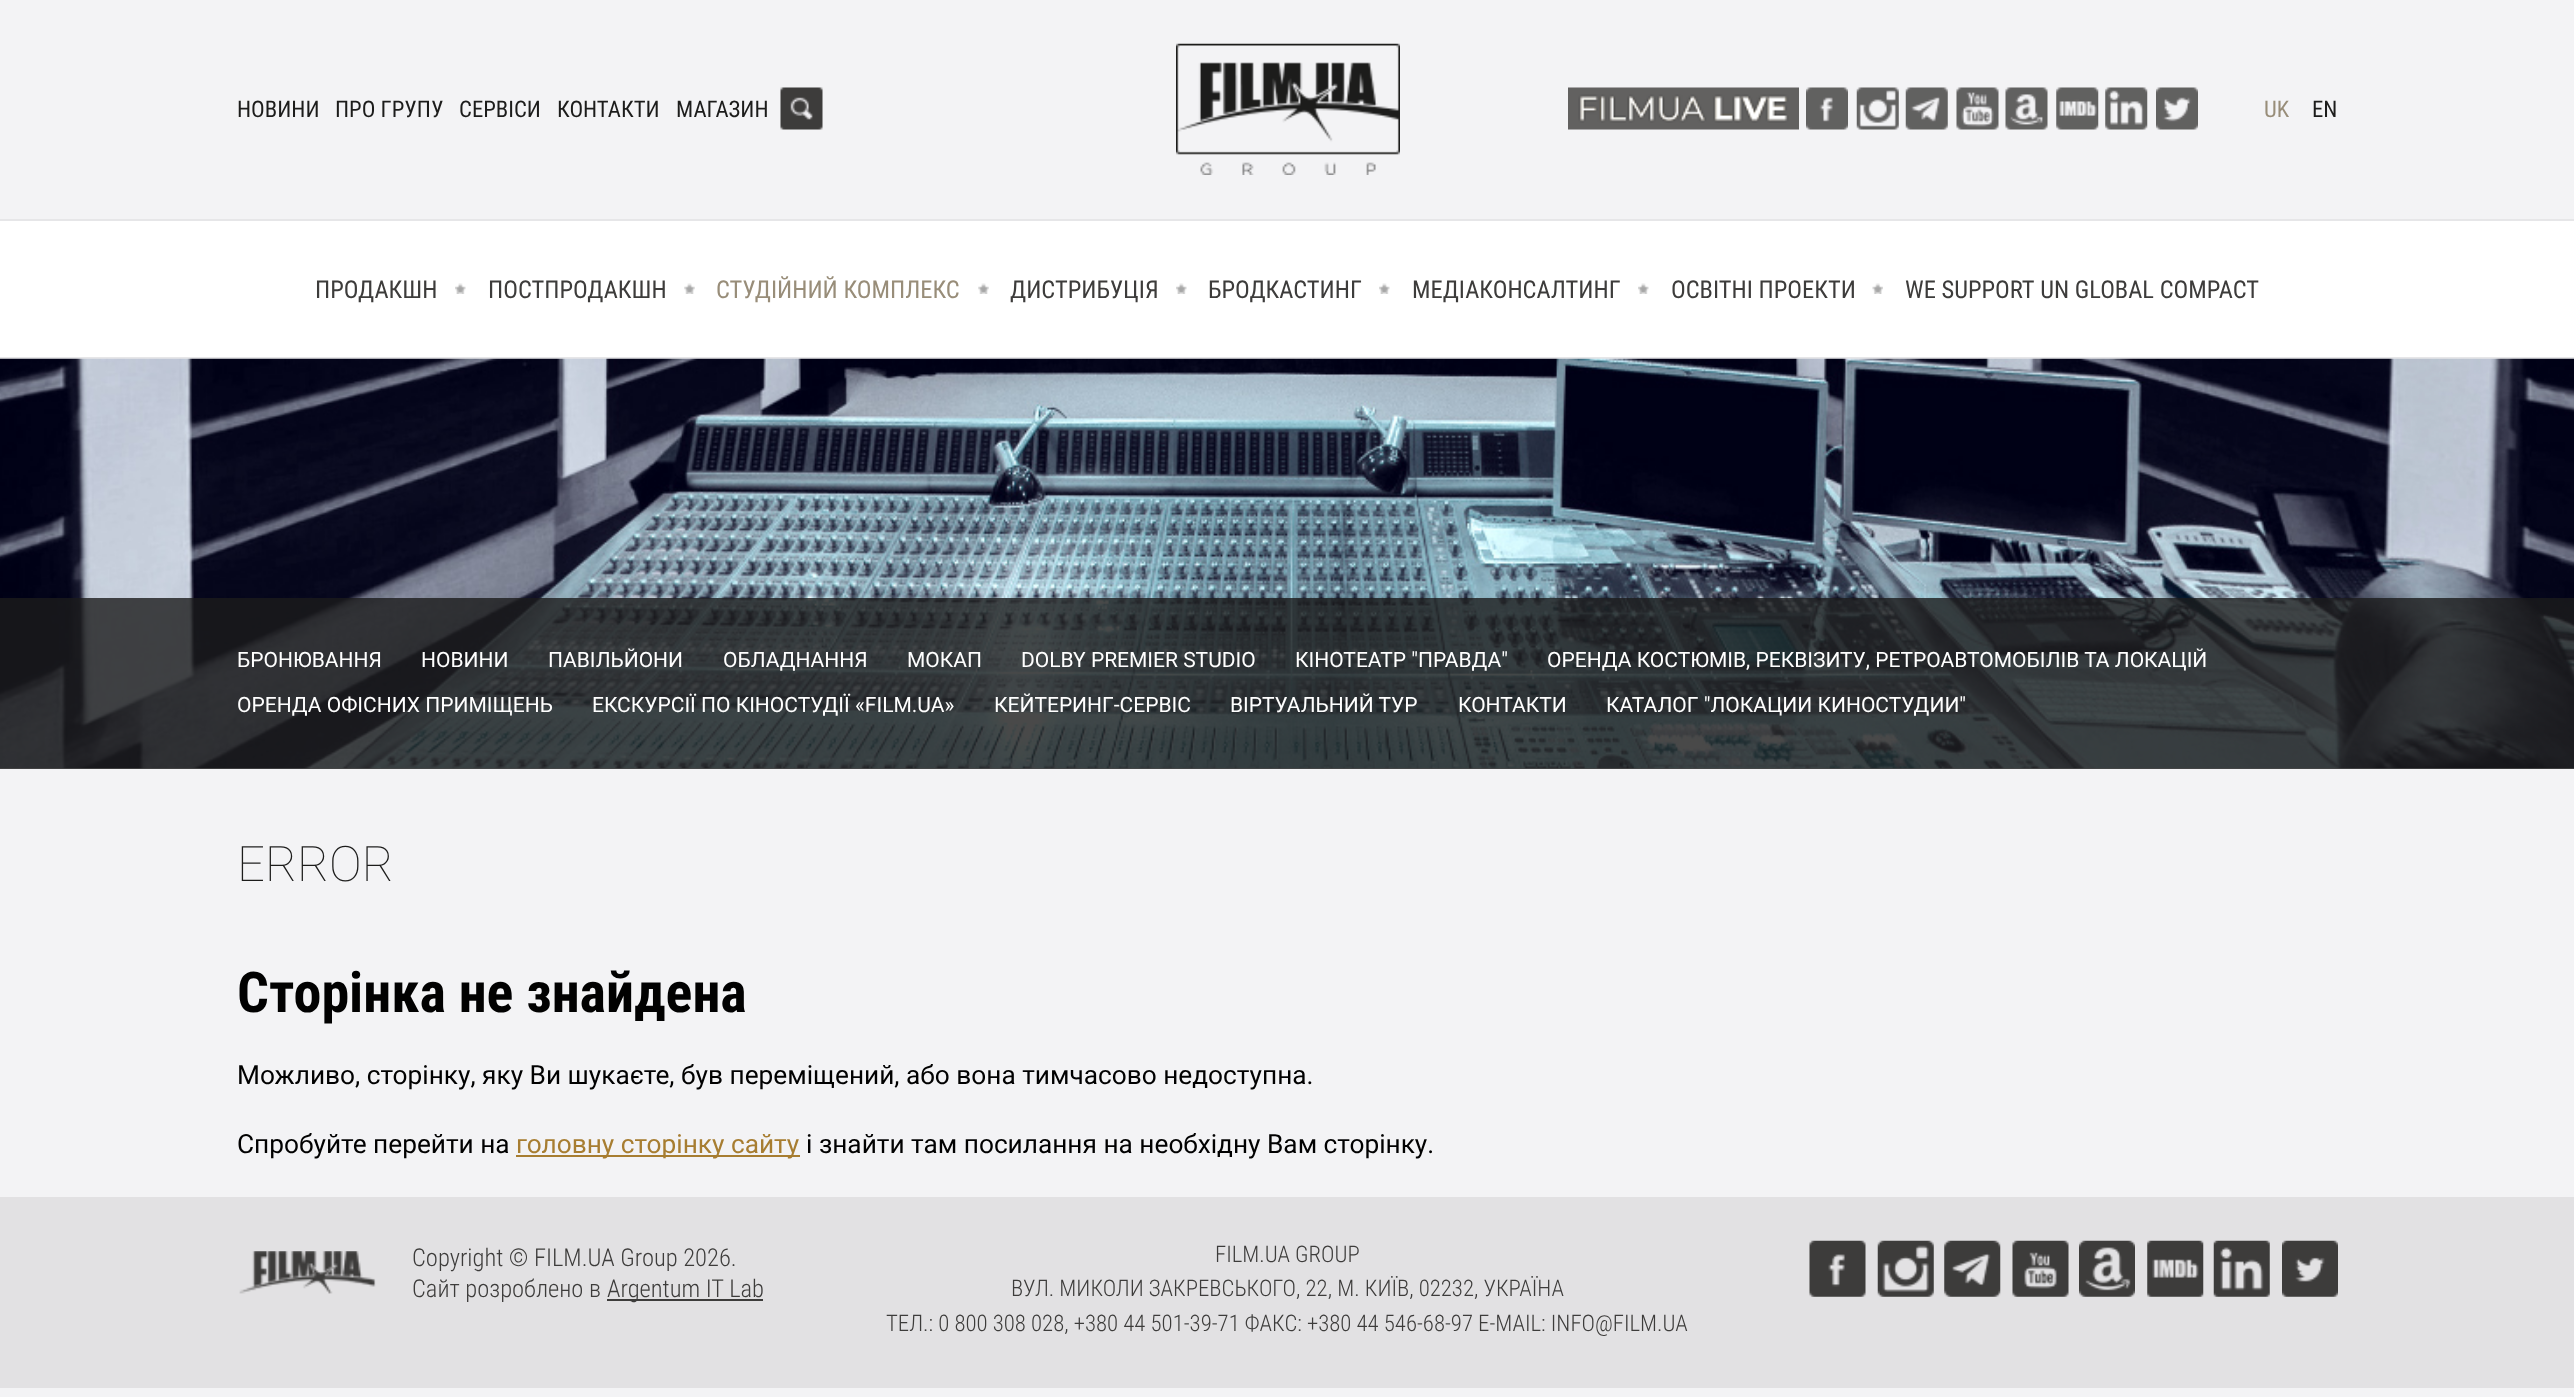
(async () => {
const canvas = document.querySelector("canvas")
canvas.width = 2574
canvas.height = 1397
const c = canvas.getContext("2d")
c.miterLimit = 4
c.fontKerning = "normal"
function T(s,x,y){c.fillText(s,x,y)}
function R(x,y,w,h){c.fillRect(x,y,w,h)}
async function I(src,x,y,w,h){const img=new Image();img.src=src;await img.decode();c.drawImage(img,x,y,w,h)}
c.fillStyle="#f3f3f5"
R(0,0,2574,1397)
c.font="22.75px Roboto Condensed"
c.fillStyle="#1c1c1b"
T("НОВИНИ",237,117)
T("ПРО ГРУПУ",335,117)
T("СЕРВІСИ",459,117)
T("КОНТАКТИ",557,117)
T("МАГАЗИН",676,117)
await I("1.png",780,87,43,43)
await I("2.png",1176,43,224,132)
await I("3.png",1568,87,231,43)
await I("4.png",1806,87,42,43)
await I("5.png",1856,87,43,43)
await I("6.png",1905,87,43,43)
await I("7.png",1956,87,43,43)
await I("8.png",2005,87,43,43)
await I("9.png",2056,87,43,43)
await I("10.png",2105,87,43,43)
await I("11.png",2156,87,42,43)
c.fillStyle="#988d79"
T("UK",2264,117)
c.fillStyle="#1c1c1b"
T("EN",2312,117)
c.fillStyle="#fff"
R(0,221,2574,136)
c.fillStyle="#e6e6e8"
R(0,219,2574,2)
R(0,357,2574,2)
c.font="24.5px Roboto Condensed"
c.fillStyle="#3d3c3b"
T("ПРОДАКШН",315,298)
await I("12.png",455,283,11,11)
T("ПОСТПРОДАКШН",488,298)
await I("13.png",684,283,11,11)
c.fillStyle="#988d79"
T("СТУДІЙНИЙ КОМПЛЕКС",716,298)
await I("13.png",978,283,11,11)
c.fillStyle="#3d3c3b"
T("ДИСТРИБУЦІЯ",1010,298)
await I("12.png",1176,283,11,11)
T("БРОДКАСТИНГ",1208,298)
await I("12.png",1379,283,11,11)
T("МЕДІАКОНСАЛТИНГ",1412,298)
await I("12.png",1638,283,11,11)
T("ОСВІТНІ ПРОЕКТИ",1671,298)
await I("14.png",1872,283,11,11)
T("WE SUPPORT UN GLOBAL COMPACT",1905,298)
await I("15.png",0,358,2574,411)
c.fillStyle="#1b1b1bcc"
R(0,598,2574,171)
c.font="21px Roboto"
c.fillStyle="#fff"
T("БРОНЮВАННЯ",237,667)
T("НОВИНИ",421,667)
T("ПАВІЛЬЙОНИ",548,667)
T("ОБЛАДНАННЯ",723,667)
T("МОКАП",907,667)
T("DOLBY PREMIER STUDIO",1021,667)
T("КІНОТЕАТР \"ПРАВДА\"",1295,667)
T("ОРЕНДА КОСТЮМІВ, РЕКВІЗИТУ, РЕТРОАВТОМОБІЛІВ ТА ЛОКАЦІЙ",1547,667)
T("ОРЕНДА ОФІСНИХ ПРИМІЩЕНЬ",237,712)
T("ЕКСКУРСІЇ ПО КІНОСТУДІЇ «FILM.UA»",592,712)
T("КЕЙТЕРИНГ-СЕРВІС",994,712)
T("ВІРТУАЛЬНИЙ ТУР",1230,712)
T("КОНТАКТИ",1458,712)
T("КАТАЛОГ \"ЛОКАЦИИ КИНОСТУДИИ\"",1606,712)
c.font="100 49px Roboto"
c.fillStyle="#1c1c1b"
T("ERROR",237,881)
c.font="bold 56px Roboto Condensed"
c.fillStyle="#010101"
T("Сторінка не знайдена",237,1012)
c.font="26.25px Roboto"
T("Можливо, сторінку, яку Ви шукаєте, був переміщений, або вона тимчасово недоступна.",237,1084)
T("Спробуйте перейти на",237,1153)
c.fillStyle="#a77d31"
R(516,1155,284,2)
T("головну сторінку сайту",516,1153)
c.fillStyle="#010101"
T("і знайти там посилання на необхідну Вам сторінку.",806,1153)
c.fillStyle="#e2e1e3"
R(0,1197,2574,191)
await I("16.png",239,1251,137,43)
c.font="300 24.5px Roboto Condensed"
c.fillStyle="#3d3c3b"
T("Copyright © FILM.UA Group 2026.",412,1266)
T("Сайт розроблено в",412,1297)
R(607,1299,156,2)
T("Argentum IT Lab",607,1297)
c.font="300 22.75px Roboto Condensed"
T("FILM.UA GROUP",1215,1262)
T("ВУЛ. МИКОЛИ ЗАКРЕВСЬКОГО, 22, М. КИЇВ, 02232, УКРАЇНА",1011,1296)
T("ТЕЛ.: 0 800 308 028, +380 44 501-39-71 ФАКС: +380 44 546-68-97 E-MAIL: INFO@FILM.UA",886,1331)
await I("17.png",1809,1240,57,57)
await I("18.png",1877,1240,57,57)
await I("19.png",1944,1240,57,57)
await I("20.png",2012,1240,57,57)
await I("21.png",2079,1240,56,57)
await I("22.png",2147,1240,57,57)
await I("23.png",2213,1240,57,57)
await I("24.png",2282,1240,56,57)
})()
